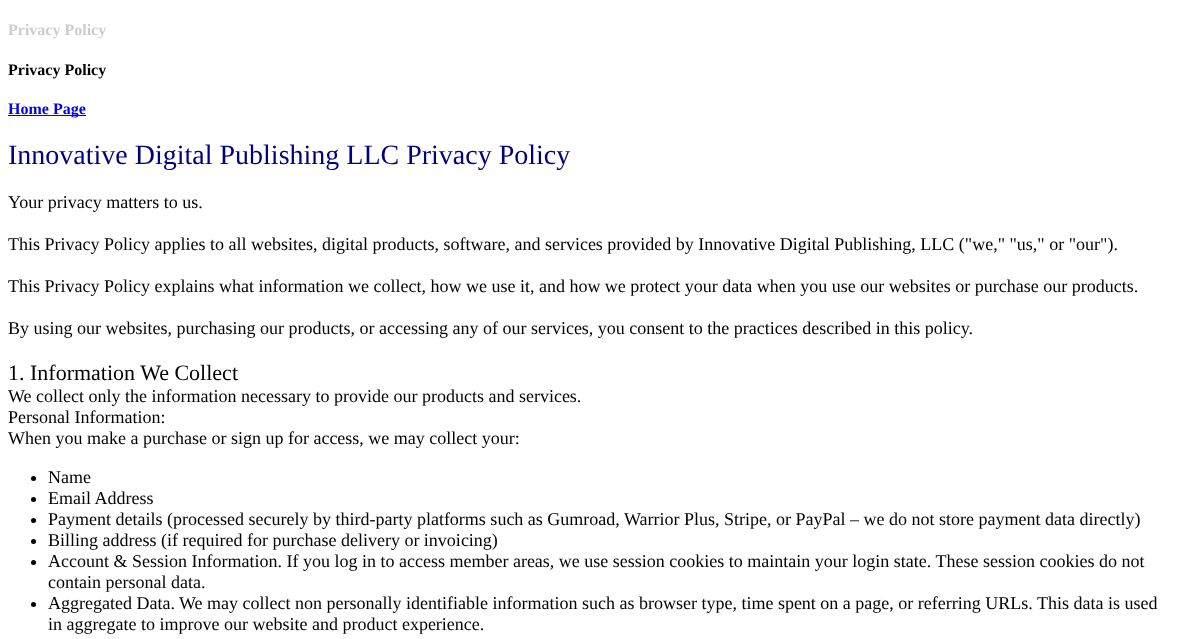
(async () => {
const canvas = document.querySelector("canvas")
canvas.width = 1180
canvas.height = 639
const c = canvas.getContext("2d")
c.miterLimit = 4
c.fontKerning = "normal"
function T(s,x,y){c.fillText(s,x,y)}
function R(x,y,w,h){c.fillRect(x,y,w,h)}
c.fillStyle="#fff"
R(0,0,1180,639)
c.font="bold 16px Liberation Serif"
c.fillStyle="#ccc"
T("Privacy Policy",8,35)
c.fillStyle="#000"
T("Privacy Policy",8,75)
c.fillStyle="#00e"
R(8,115,78,1)
T("Home Page",8,114)
c.font="28px Liberation Serif"
c.fillStyle="#000080"
T("Innovative Digital Publishing LLC Privacy Policy",8,164)
c.font="18px Liberation Serif"
c.fillStyle="#000"
T("Your privacy matters to us.",8,208)
T("This Privacy Policy applies to all websites, digital products, software, and services provided by Innovative Digital Publishing, LLC (\"we,\" \"us,\" or \"our\").",8,250)
T("This Privacy Policy explains what information we collect, how we use it, and how we protect your data when you use our websites or purchase our products.",8,292)
T("By using our websites, purchasing our products, or accessing any of our services, you consent to the practices described in this policy.",8,334)
c.font="22px Liberation Serif"
T("1. Information We Collect",8,380)
c.font="18px Liberation Serif"
T("We collect only the information necessary to provide our products and services.",8,402)
T("Personal Information:",8,423)
T("When you make a purchase or sign up for access, we may collect your:",8,444)
c.beginPath()
c.arc(33.5,478.5,2.5,0,7)
c.fill()
T("Name",48,483)
c.beginPath()
c.arc(33.5,499.5,2.5,0,7)
c.fill()
T("Email Address",48,504)
c.beginPath()
c.arc(33.5,520.5,2.5,0,7)
c.fill()
T("Payment details (processed securely by third-party platforms such as Gumroad, Warrior Plus, Stripe, or PayPal – we do not store payment data directly)",48,525)
c.beginPath()
c.arc(33.5,541.5,2.5,0,7)
c.fill()
T("Billing address (if required for purchase delivery or invoicing)",48,546)
c.beginPath()
c.arc(33.5,562.5,2.5,0,7)
c.fill()
T("Account & Session Information. If you log in to access member areas, we use session cookies to maintain your login state. These session cookies do not",48,567)
T("contain personal data.",48,588)
c.beginPath()
c.arc(33.5,604.5,2.5,0,7)
c.fill()
T("Aggregated Data.",48,609)
T("We may collect non personally identifiable information such as browser type, time spent on a page, or referring URLs. This data is used",179,609)
T("in aggregate to improve our website and product experience.",48,630)
})()
